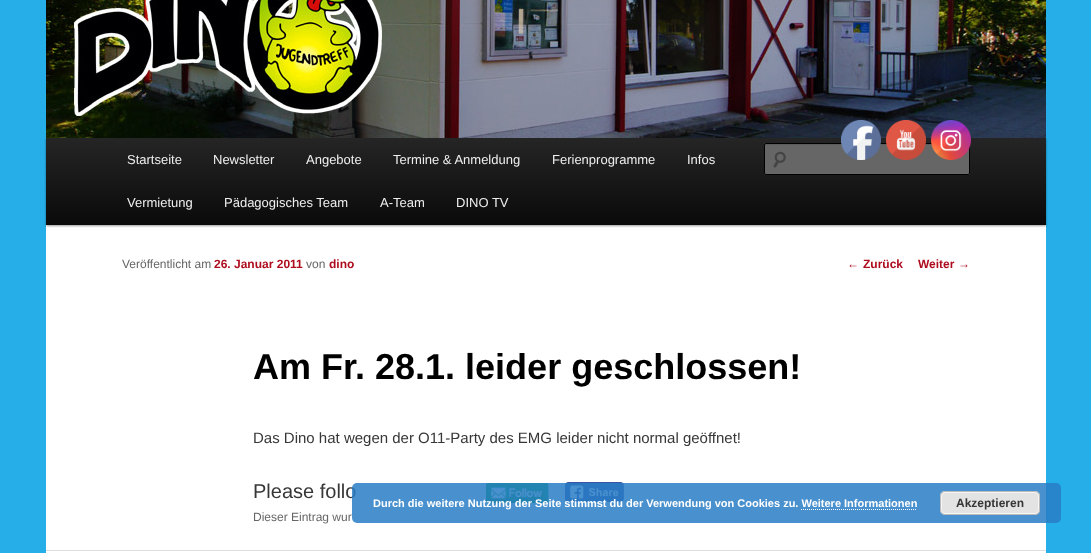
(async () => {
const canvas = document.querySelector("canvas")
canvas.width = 1091
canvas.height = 553
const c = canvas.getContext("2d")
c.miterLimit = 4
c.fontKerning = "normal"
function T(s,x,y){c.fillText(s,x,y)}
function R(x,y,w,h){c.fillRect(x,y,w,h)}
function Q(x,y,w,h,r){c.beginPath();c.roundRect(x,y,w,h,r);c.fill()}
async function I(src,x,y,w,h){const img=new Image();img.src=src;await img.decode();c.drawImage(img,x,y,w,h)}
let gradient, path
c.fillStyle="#25aee7"
R(0,0,1091,553)
c.fillStyle="#fff"
R(46,225,1000,328)
c.fillStyle="#00000066"
c.filter="blur(1px)"
c.beginPath()
c.rect(46,139,1000,87)
c.fill()
c.filter="none"
await I("4.png",46,0,1000,138)
gradient = c.createLinearGradient(546,138,546,225)
gradient.addColorStop(0,"#252525")
gradient.addColorStop(1,"#0a0a0a")
c.fillStyle = gradient
R(46,138,1000,87)
c.fillStyle="#666"
Q(764,143,206,32,2)
c.fillStyle="#5c5c5c"
path = new Path2D("M766 145h203v1v-2h-1h-202c-1 0-1 1-1 2c0-1 0-1 1-1z")
c.fill(path)
await I("5.png",773,151,13,17)
c.beginPath()
c.roundRect(764.5,143.5,205,31,1.5)
c.strokeStyle="#000"
c.stroke()
await I("1.png",841,120,40,40)
await I("2.png",886,120,40,40)
await I("3.png",931,120,40,40)
c.font="13px Liberation Sans"
c.fillStyle="#eee"
T("Startseite",127,164)
T("Newsletter",213,164)
T("Angebote",306,164)
T("Termine & Anmeldung",393,164)
T("Ferienprogramme",552,164)
T("Infos",687,164)
T("Vermietung",127,207)
T("Pädagogisches Team",224,207)
T("A-Team",380,207)
T("DINO TV",456,207)
c.font="12px Liberation Sans"
c.fillStyle="#666"
T("Veröffentlicht am",122,268)
c.font="bold 12px Liberation Sans"
c.fillStyle="#ae0d1f"
T("26. Januar 2011",214,268)
c.font="12px Liberation Sans"
c.fillStyle="#666"
T("von",306,268)
c.font="bold 12px Liberation Sans"
c.fillStyle="#ae0d1f"
T("dino",329,268)
c.font="bold 36px Liberation Sans"
c.fillStyle="#000"
T("Am Fr. 28.1. leider geschlossen!",253,379)
c.font="15px Liberation Sans"
c.fillStyle="#373737"
T("Das Dino hat wegen der O11-Party des EMG leider nicht normal geöffnet!",253,443)
c.font="20px Liberation Sans"
T("Please follo",253,498)
await I("6.png",486,483,63,20)
await I("7.png",565,482,59,20)
c.font="12px Liberation Sans"
c.fillStyle="#666"
T("Dieser Eintrag wur",253,521)
c.fillStyle="#ae0d1f"
T("←",847,268)
c.font="bold 12px Liberation Sans"
T("Zurück",863,268)
T("Weiter",918,268)
c.font="12px Liberation Sans"
T("→",958,268)
c.fillStyle="#ddd"
R(46,550,1000,1)
c.fillStyle="#297dc6d9"
Q(352,483,709,40,5)
c.font="bold 11px Liberation Sans"
c.fillStyle="#fff"
T("Durch die weitere Nutzung der Seite stimmst du der Verwendung von Cookies zu. Weitere Informationen",373,507)
c.fillStyle="#e3e3e3"
Q(940,491,100,24,5)
c.beginPath()
c.roundRect(941.5,492.5,97,21,3.5)
c.strokeStyle="#f6f6f6"
c.stroke()
c.beginPath()
c.roundRect(940.5,491.5,99,23,4.5)
c.strokeStyle="#bbb"
c.stroke()
c.font="bold 12px Liberation Sans"
c.fillStyle="#373737"
T("Akzeptieren",956,507)
path = new Path2D("M801 509.5h116")
c.strokeStyle="#fff"
c.setLineDash([1,1])
c.stroke(path)
})()
